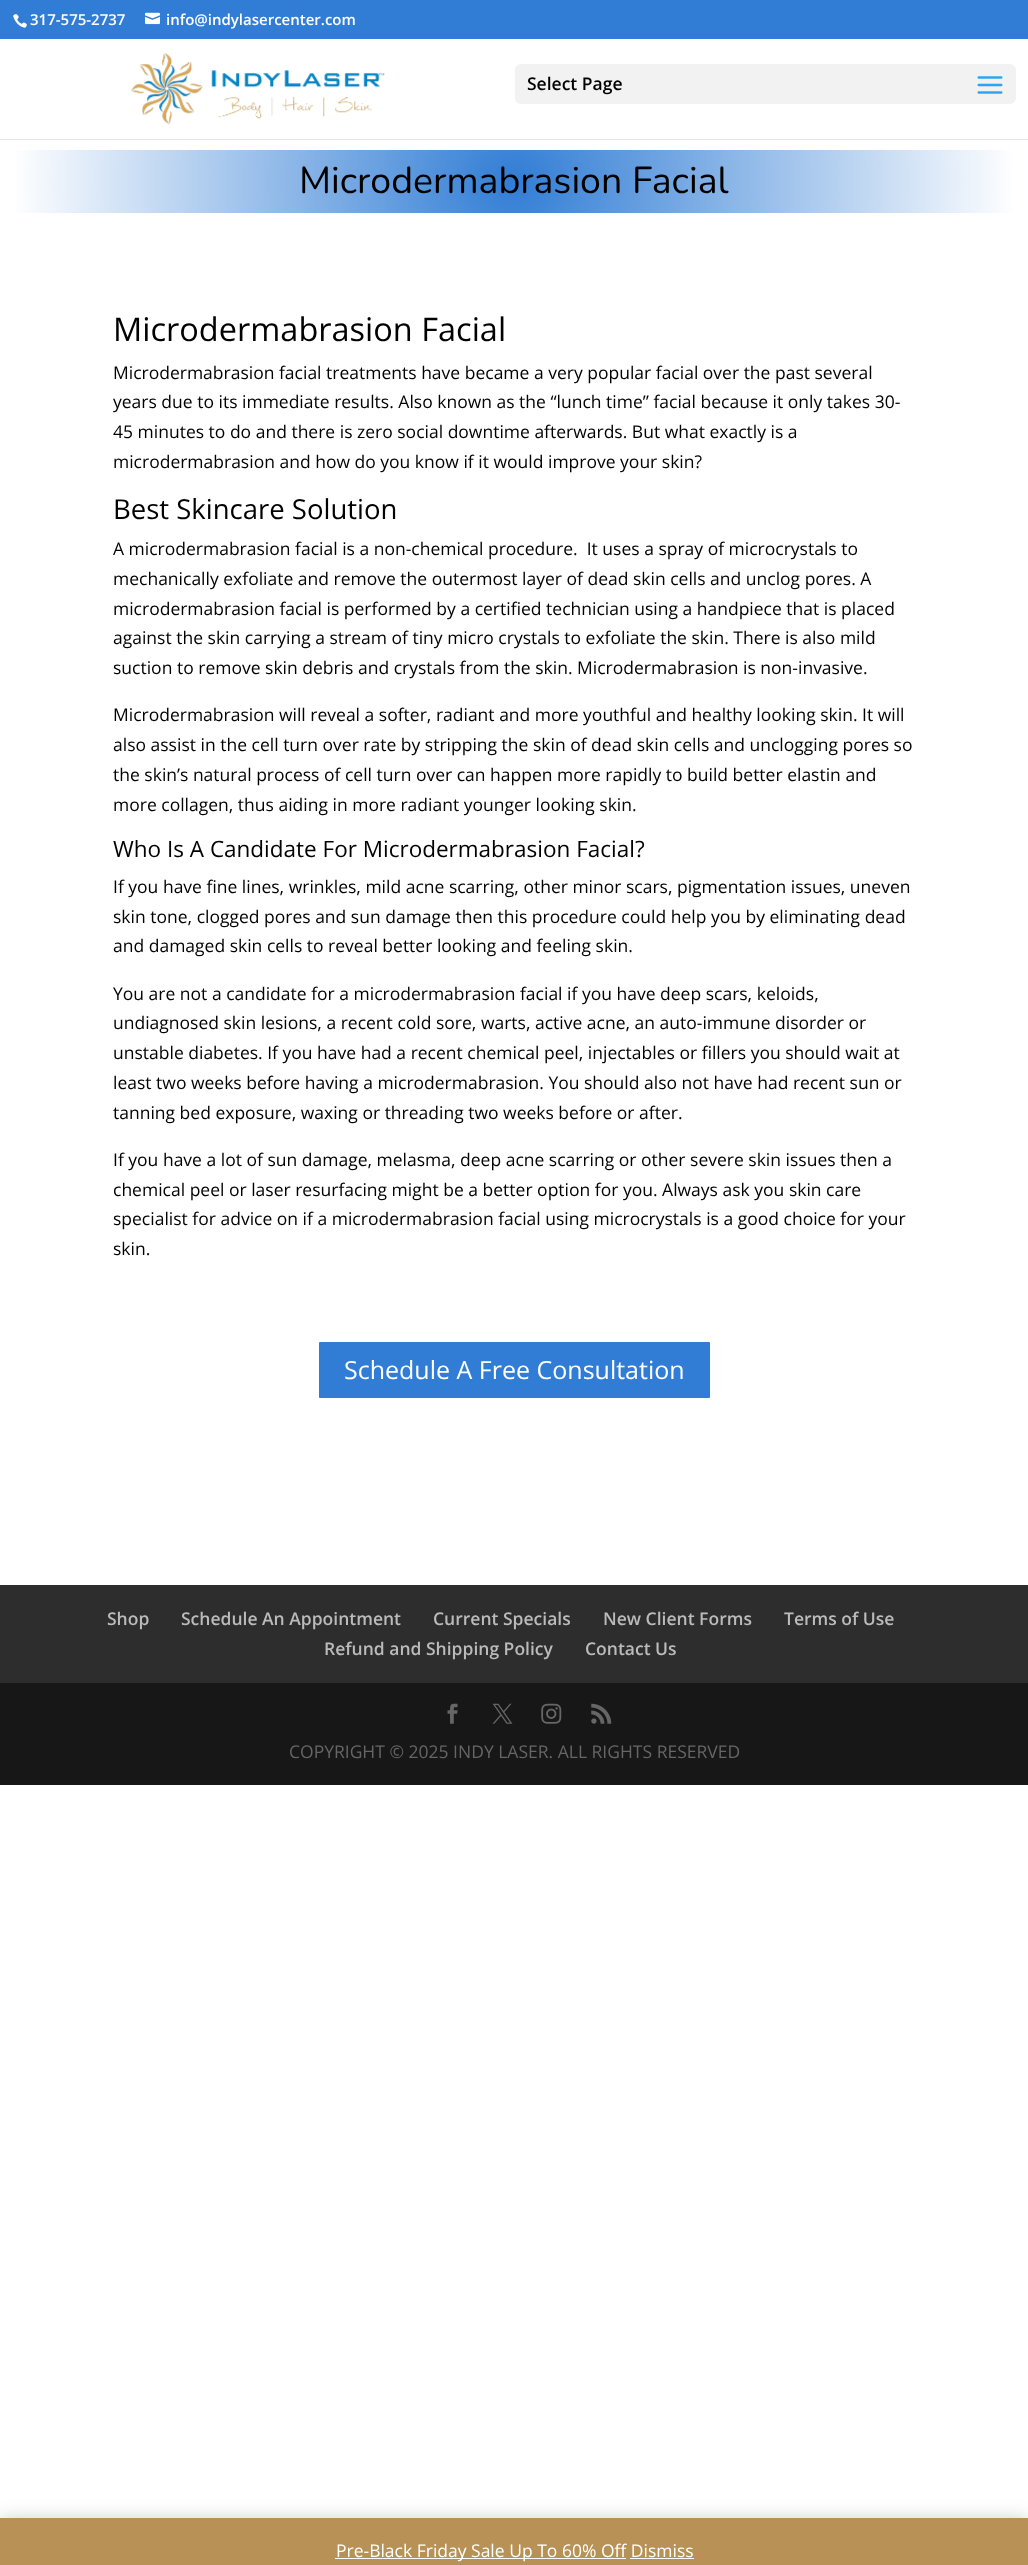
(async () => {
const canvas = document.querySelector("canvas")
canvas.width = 1028
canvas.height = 2565
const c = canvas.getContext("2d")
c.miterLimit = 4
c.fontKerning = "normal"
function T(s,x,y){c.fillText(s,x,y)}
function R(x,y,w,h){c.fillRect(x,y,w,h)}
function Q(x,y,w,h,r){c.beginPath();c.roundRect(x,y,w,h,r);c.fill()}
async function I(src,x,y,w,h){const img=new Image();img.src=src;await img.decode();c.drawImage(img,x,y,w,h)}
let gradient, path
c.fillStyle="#fff"
R(0,0,1028,2565)
c.fillStyle="#317dd5"
R(0,0,1028,39)
await I("1.png",13,14,14,14)
c.font="600 15px Open Sans"
c.fillStyle="#fff"
T("317-575-2737",30,25)
await I("2.png",145,12,15,13)
T("info@indylasercenter.com",166,25)
c.fillStyle="#e6e6e6"
path = new Path2D("M0 139v1h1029v-100v99z")
c.fill(path)
await I("3.png",131,52,254,73)
c.fillStyle="#f2f2f2"
Q(515,64,501,40,6)
c.font="600 17.5px Open Sans"
c.fillStyle="#000"
T("Select Page",527,90)
await I("4.png",977,76,26,18)
gradient = c.createRadialGradient(514,181,0,514,181,503)
gradient.addColorStop(0,"#317dd5")
gradient.addColorStop(1,"#fff")
c.fillStyle = gradient
R(16,150,996,63)
c.font="37.5px Nunito"
c.fillStyle="#000"
T("Microdermabrasion Facial",299,193)
c.font="32.5px Open Sans"
T("Microdermabrasion Facial",113,341)
c.font="17.5px Open Sans"
T("Microdermabrasion facial treatments have became a very popular facial over the past several",113,379)
T("years due to its immediate results. Also known as the “lunch time” facial because it only takes 30-",113,408)
T("45 minutes to do and there is zero social downtime afterwards. But what exactly is a",113,438)
T("microdermabrasion and how do you know if it would improve your skin?",113,468)
c.font="27.5px Open Sans"
T("Best Skincare Solution",113,519)
c.font="17.5px Open Sans"
T("A microdermabrasion facial is a non-chemical procedure.  It uses a spray of microcrystals to",113,555)
T("mechanically exfoliate and remove the outermost layer of dead skin cells and unclog pores. A",113,585)
T("microdermabrasion facial is performed by a certified technician using a handpiece that is placed",113,615)
T("against the skin carrying a stream of tiny micro crystals to exfoliate the skin. There is also mild",113,644)
T("suction to remove skin debris and crystals from the skin. Microdermabrasion is non-invasive.",113,674)
T("Microdermabrasion will reveal a softer, radiant and more youthful and healthy looking skin. It will",113,721)
T("also assist in the cell turn over rate by stripping the skin of dead skin cells and unclogging pores so",113,751)
T("the skin’s natural process of cell turn over can happen more rapidly to build better elastin and",113,781)
T("more collagen, thus aiding in more radiant younger looking skin.",113,811)
c.font="22.5px Open Sans"
T("Who Is A Candidate For Microdermabrasion Facial?",113,857)
c.font="17.5px Open Sans"
T("If you have fine lines, wrinkles, mild acne scarring, other minor scars, pigmentation issues, uneven",113,893)
T("skin tone, clogged pores and sun damage then this procedure could help you by eliminating dead",113,923)
T("and damaged skin cells to reveal better looking and feeling skin.",113,952)
T("You are not a candidate for a microdermabrasion facial if you have deep scars, keloids,",113,1000)
T("undiagnosed skin lesions, a recent cold sore, warts, active acne, an auto-immune disorder or",113,1029)
T("unstable diabetes. If you have had a recent chemical peel, injectables or fillers you should wait at",113,1059)
T("least two weeks before having a microdermabrasion. You should also not have had recent sun or",113,1089)
T("tanning bed exposure, waxing or threading two weeks before or after.",113,1119)
T("If you have a lot of sun damage, melasma, deep acne scarring or other severe skin issues then a",113,1166)
T("chemical peel or laser resurfacing might be a better option for you. Always ask you skin care",113,1196)
T("specialist for advice on if a microdermabrasion facial using microcrystals is a good choice for your",113,1225)
T("skin.",113,1255)
c.fillStyle="#317dd5"
c.beginPath()
c.roundRect(317.5,1340.5,394,59,2.5)
c.fill()
c.strokeStyle="#fff"
c.lineWidth=3
c.stroke()
c.font="25px Open Sans"
c.fillStyle="#fff"
T("Schedule A Free Consultation",344,1379)
c.fillStyle="#2d2d2d"
R(0,1585,1028,98)
c.font="600 17.5px Open Sans"
c.fillStyle="#bbb"
T("Shop",107,1625)
T("Schedule An Appointment",181,1625)
T("Current Specials",433,1625)
T("New Client Forms",603,1625)
T("Terms of Use",784,1625)
T("Refund and Shipping Policy",324,1655)
T("Contact Us",585,1655)
c.fillStyle="#171717"
R(0,1683,1028,102)
await I("5.png",447,1703,11,21)
await I("6.png",492,1703,21,21)
await I("7.png",541,1703,21,21)
await I("8.png",591,1703,21,21)
c.font="17.5px Open Sans"
c.fillStyle="#666"
T("COPYRIGHT © 2025 INDY LASER. ALL RIGHTS RESERVED",289,1758)
c.fillStyle="#00000033"
c.filter="blur(9px)"
c.beginPath()
c.rect(0,2519,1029,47)
c.fill()
c.filter="none"
c.fillStyle="#b79156"
R(0,2518,1028,47)
c.fillStyle="#fcfbfe"
R(335,2558,291,1)
c.fillStyle="#fff"
T("Pre-Black Friday Sale Up To 60% Off Dismiss",336,2557)
c.fillStyle="#fcfbfe"
R(630,2558,64,1)
})()
